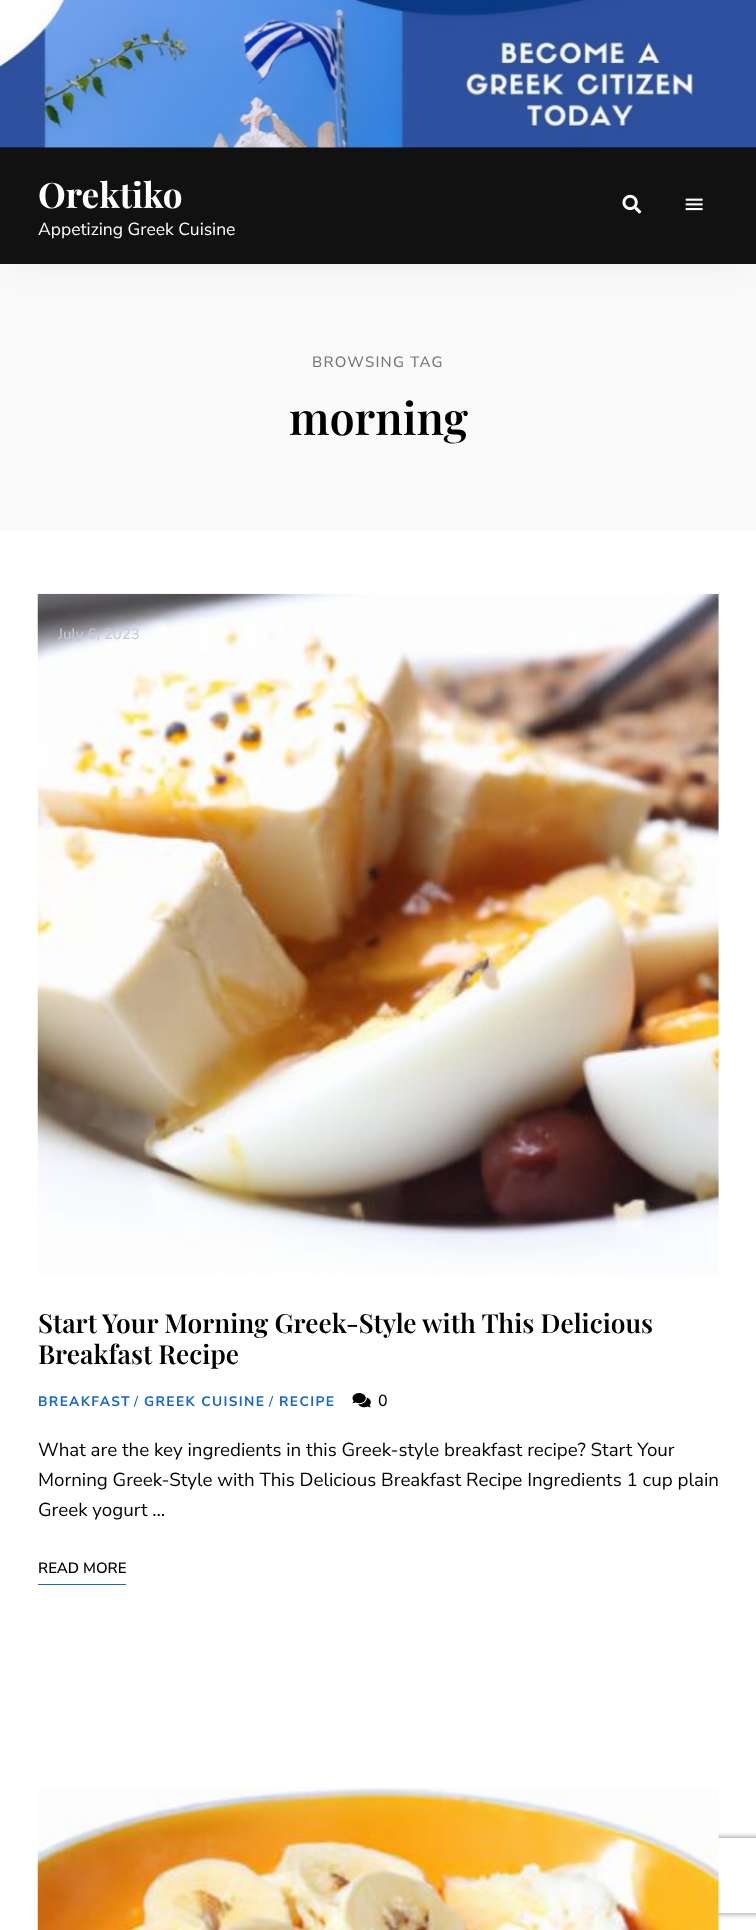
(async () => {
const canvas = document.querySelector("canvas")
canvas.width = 756
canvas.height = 1930
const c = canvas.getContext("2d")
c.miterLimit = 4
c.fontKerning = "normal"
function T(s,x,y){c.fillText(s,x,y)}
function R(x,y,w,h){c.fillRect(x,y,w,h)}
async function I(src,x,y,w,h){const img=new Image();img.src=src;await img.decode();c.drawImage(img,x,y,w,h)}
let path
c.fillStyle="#fff"
R(0,0,756,1930)
c.fillStyle="#fafafa"
R(0,264,756,267)
c.fillStyle="#0000000d"
c.filter="blur(19px)"
c.beginPath()
c.rect(8,165,741,101)
c.fill()
c.filter="none"
c.fillStyle="#000"
R(0,147,756,1)
await I("1.png",0,0,756,148)
c.fillStyle="#111"
R(0,148,756,116)
c.font="bold 35px Playfair Display"
c.fillStyle="#fff"
T("Orektiko",38,208)
c.font="17.5px Nunito Sans"
T("Appetizing Greek Cuisine",38,235)
await I("2.png",622,194,20,20)
await I("3.png",685,198,18,13)
c.letterSpacing="1.25px"
c.font="500 15px Nunito Sans"
c.fillStyle="#767676"
T("BROWSING TAG",312,367)
c.letterSpacing="0px"
c.font="600 45px Playfair Display"
c.fillStyle="#000"
T("morning",289,435)
await I("4.png",37,593,682,682)
c.font="500 15px Nunito Sans"
c.fillStyle="#c8c9d2"
T("July 6, 2023",58,639)
c.font="600 26.25px Playfair Display"
c.fillStyle="#000"
T("Start Your Morning Greek-Style with This Delicious",38,1333)
T("Breakfast Recipe",38,1364)
c.letterSpacing="1.4px"
c.font="bold 13.75px Nunito Sans"
c.fillStyle="#1269c7"
T("BREAKFAST",38,1406)
c.letterSpacing="0px"
c.font="500 13.75px Nunito Sans"
T("/",134,1406)
c.letterSpacing="1.4px"
c.font="bold 13.75px Nunito Sans"
T("GREEK CUISINE",144,1406)
c.letterSpacing="0px"
c.font="500 13.75px Nunito Sans"
T("/",269,1406)
c.letterSpacing="1.4px"
c.font="bold 13.75px Nunito Sans"
T("RECIPE",279,1406)
await I("5.png",352,1393,19,15)
c.letterSpacing="1.25px"
c.font="500 16px Nunito Sans"
c.fillStyle="#000"
T("0",378,1406)
c.letterSpacing="0px"
c.font="18.75px Nunito Sans"
T("What are the key ingredients in this Greek-style breakfast recipe? Start Your",38,1456)
T("Morning Greek-Style with This Delicious Breakfast Recipe Ingredients 1 cup plain",38,1486)
T("Greek yogurt …",38,1516)
c.font="600 15px Nunito Sans"
T("READ MORE",38,1573)
c.fillStyle="#1269c7"
R(38,1584,88,1)
c.save()
path = new Path2D("M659 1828h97v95h-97zm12.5 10h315c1.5 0 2.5 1 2.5 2.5v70c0 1.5-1 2.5-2.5 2.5h-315c-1.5 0-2.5-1-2.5-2.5v-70c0-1.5 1-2.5 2.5-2.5z")
c.clip(path,"evenodd")
c.fillStyle="#808080"
c.filter="blur(3px)"
c.beginPath()
c.roundRect(669,1838,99,75,2.5)
c.fill()
c.filter="none"
c.restore()
await I("6.png",37,1787,682,143)
})()
